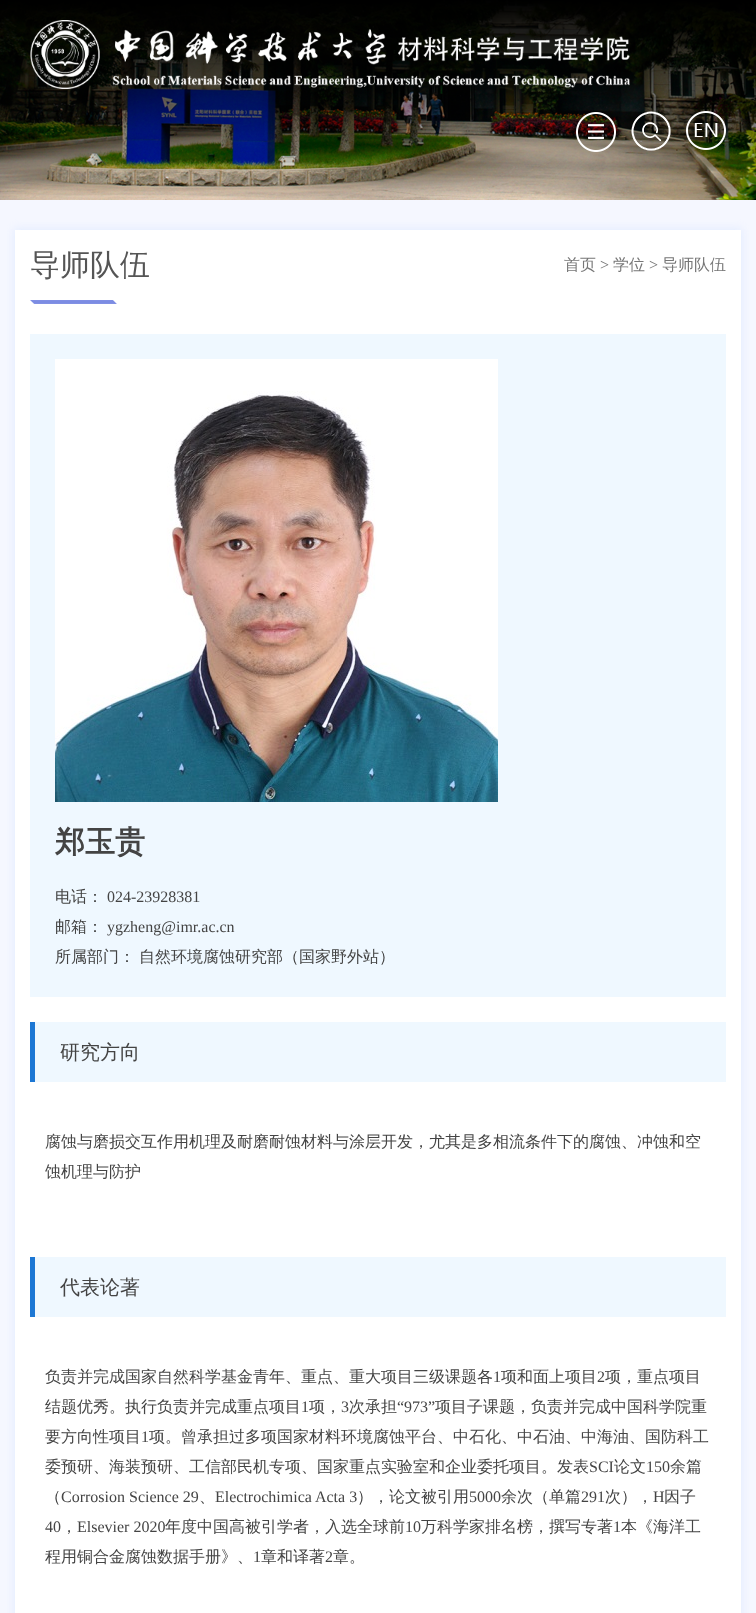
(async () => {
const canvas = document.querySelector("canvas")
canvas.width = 756
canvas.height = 1613
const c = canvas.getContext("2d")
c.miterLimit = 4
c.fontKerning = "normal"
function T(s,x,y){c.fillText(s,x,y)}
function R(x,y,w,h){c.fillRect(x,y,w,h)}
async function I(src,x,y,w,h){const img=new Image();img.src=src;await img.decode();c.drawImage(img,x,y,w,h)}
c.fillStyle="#f5f7ff"
R(0,0,756,1613)
await I("1.png",0,0,756,200)
await I("2.png",30,20,600,69)
await I("3.png",576,112,40,40)
await I("4.png",631,111,40,40)
await I("5.png",686,111,40,39)
c.fillStyle="#d2e1ff80"
c.filter="blur(4.5px)"
c.beginPath()
c.rect(14,229,728,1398)
c.fill()
c.filter="none"
c.fillStyle="#fff"
R(15,230,726,1383)
c.font="500 30px WenQuanYi Zen Hei"
c.fillStyle="#555"
T("导师队伍",30,275)
c.font="500 16px WenQuanYi Zen Hei"
c.fillStyle="#777"
T("首页",564,270)
c.font="16px Liberation Serif"
T(">",600,270)
c.font="500 16px WenQuanYi Zen Hei"
T("学位",613,270)
c.font="16px Liberation Serif"
T(">",649,270)
c.font="500 16px WenQuanYi Zen Hei"
T("导师队伍",662,270)
await I("6.png",30,300,87,4)
c.fillStyle="#eff8ff"
R(30,334,696,663)
await I("7.png",55,359,443,443)
c.font="bold 30px WenQuanYi Zen Hei"
c.fillStyle="#444"
T("郑玉贵",55,852)
c.font="500 16px WenQuanYi Zen Hei"
T("电话：",55,902)
c.font="16px Liberation Serif"
T("024-23928381",107,902)
c.font="500 16px WenQuanYi Zen Hei"
T("邮箱：",55,932)
c.font="16px Liberation Serif"
T("ygzheng@imr.ac.cn",107,932)
c.font="500 16px WenQuanYi Zen Hei"
T("所属部门：",55,962)
T("自然环境腐蚀研究部（国家野外站）",139,962)
c.fillStyle="#eff8ff"
R(35,1022,691,60)
c.fillStyle="#1c77d4"
R(30,1022,5,60)
c.font="500 20px WenQuanYi Zen Hei"
c.fillStyle="#444"
T("研究方向",60,1059)
c.font="500 16px WenQuanYi Zen Hei"
T("腐蚀与磨损交互作用机理及耐磨耐蚀材料与涂层开发，尤其是多相流条件下的腐蚀、冲蚀和空",45,1147)
T("蚀机理与防护",45,1177)
c.fillStyle="#eff8ff"
R(35,1257,691,60)
c.fillStyle="#1c77d4"
R(30,1257,5,60)
c.font="500 20px WenQuanYi Zen Hei"
c.fillStyle="#444"
T("代表论著",60,1294)
c.font="500 16px WenQuanYi Zen Hei"
T("负责并完成国家自然科学基金青年、重点、重大项目三级课题各",45,1382)
c.font="16px Liberation Serif"
T("1",493,1382)
c.font="500 16px WenQuanYi Zen Hei"
T("项和面上项目",501,1382)
c.font="16px Liberation Serif"
T("2",597,1382)
c.font="500 16px WenQuanYi Zen Hei"
T("项，重点项目",605,1382)
T("结题优秀。执行负责并完成重点项目",45,1412)
c.font="16px Liberation Serif"
T("1",301,1412)
c.font="500 16px WenQuanYi Zen Hei"
T("项，",309,1412)
c.font="16px Liberation Serif"
T("3",341,1412)
c.font="500 16px WenQuanYi Zen Hei"
T("次承担",349,1412)
c.font="16px Liberation Serif"
T("“973”",397,1412)
c.font="500 16px WenQuanYi Zen Hei"
T("项目子课题，负责并完成中国科学院重",435,1412)
T("要方向性项目",45,1442)
c.font="16px Liberation Serif"
T("1",141,1442)
c.font="500 16px WenQuanYi Zen Hei"
T("项。曾承担过多项国家材料环境腐蚀平台、中石化、中石油、中海油、国防科工",149,1442)
T("委预研、海装预研、工信部民机专项、国家重点实验室和企业委托项目。发表",45,1472)
c.font="16px Liberation Serif"
T("SCI",589,1472)
c.font="500 16px WenQuanYi Zen Hei"
T("论文",614,1472)
c.font="16px Liberation Serif"
T("150",646,1472)
c.font="500 16px WenQuanYi Zen Hei"
T("余篇",670,1472)
T("（",45,1502)
c.font="16px Liberation Serif"
T("Corrosion Science 29",61,1502)
c.font="500 16px WenQuanYi Zen Hei"
T("、",199,1502)
c.font="16px Liberation Serif"
T("Electrochimica Acta 3",215,1502)
c.font="500 16px WenQuanYi Zen Hei"
T("），论文被引用",357,1502)
c.font="16px Liberation Serif"
T("5000",469,1502)
c.font="500 16px WenQuanYi Zen Hei"
T("余次（单篇",501,1502)
c.font="16px Liberation Serif"
T("291",581,1502)
c.font="500 16px WenQuanYi Zen Hei"
T("次），",605,1502)
c.font="16px Liberation Serif"
T("H",653,1502)
c.font="500 16px WenQuanYi Zen Hei"
T("因子",664,1502)
c.font="16px Liberation Serif"
T("40",45,1532)
T("Elsevier 2020",77,1532)
c.font="500 16px WenQuanYi Zen Hei"
T("年度中国高被引学者，入选全球前",165,1532)
c.font="16px Liberation Serif"
T("10",405,1532)
c.font="500 16px WenQuanYi Zen Hei"
T("万科学家排名榜，撰写专著",421,1532)
c.font="16px Liberation Serif"
T("1",613,1532)
c.font="500 16px WenQuanYi Zen Hei"
T("本《海洋工",621,1532)
T("，",61,1532)
T("程用铜合金腐蚀数据手册》、",45,1562)
c.font="16px Liberation Serif"
T("1",253,1562)
c.font="500 16px WenQuanYi Zen Hei"
T("章和译著",261,1562)
c.font="16px Liberation Serif"
T("2",325,1562)
c.font="500 16px WenQuanYi Zen Hei"
T("章。",333,1562)
})()
